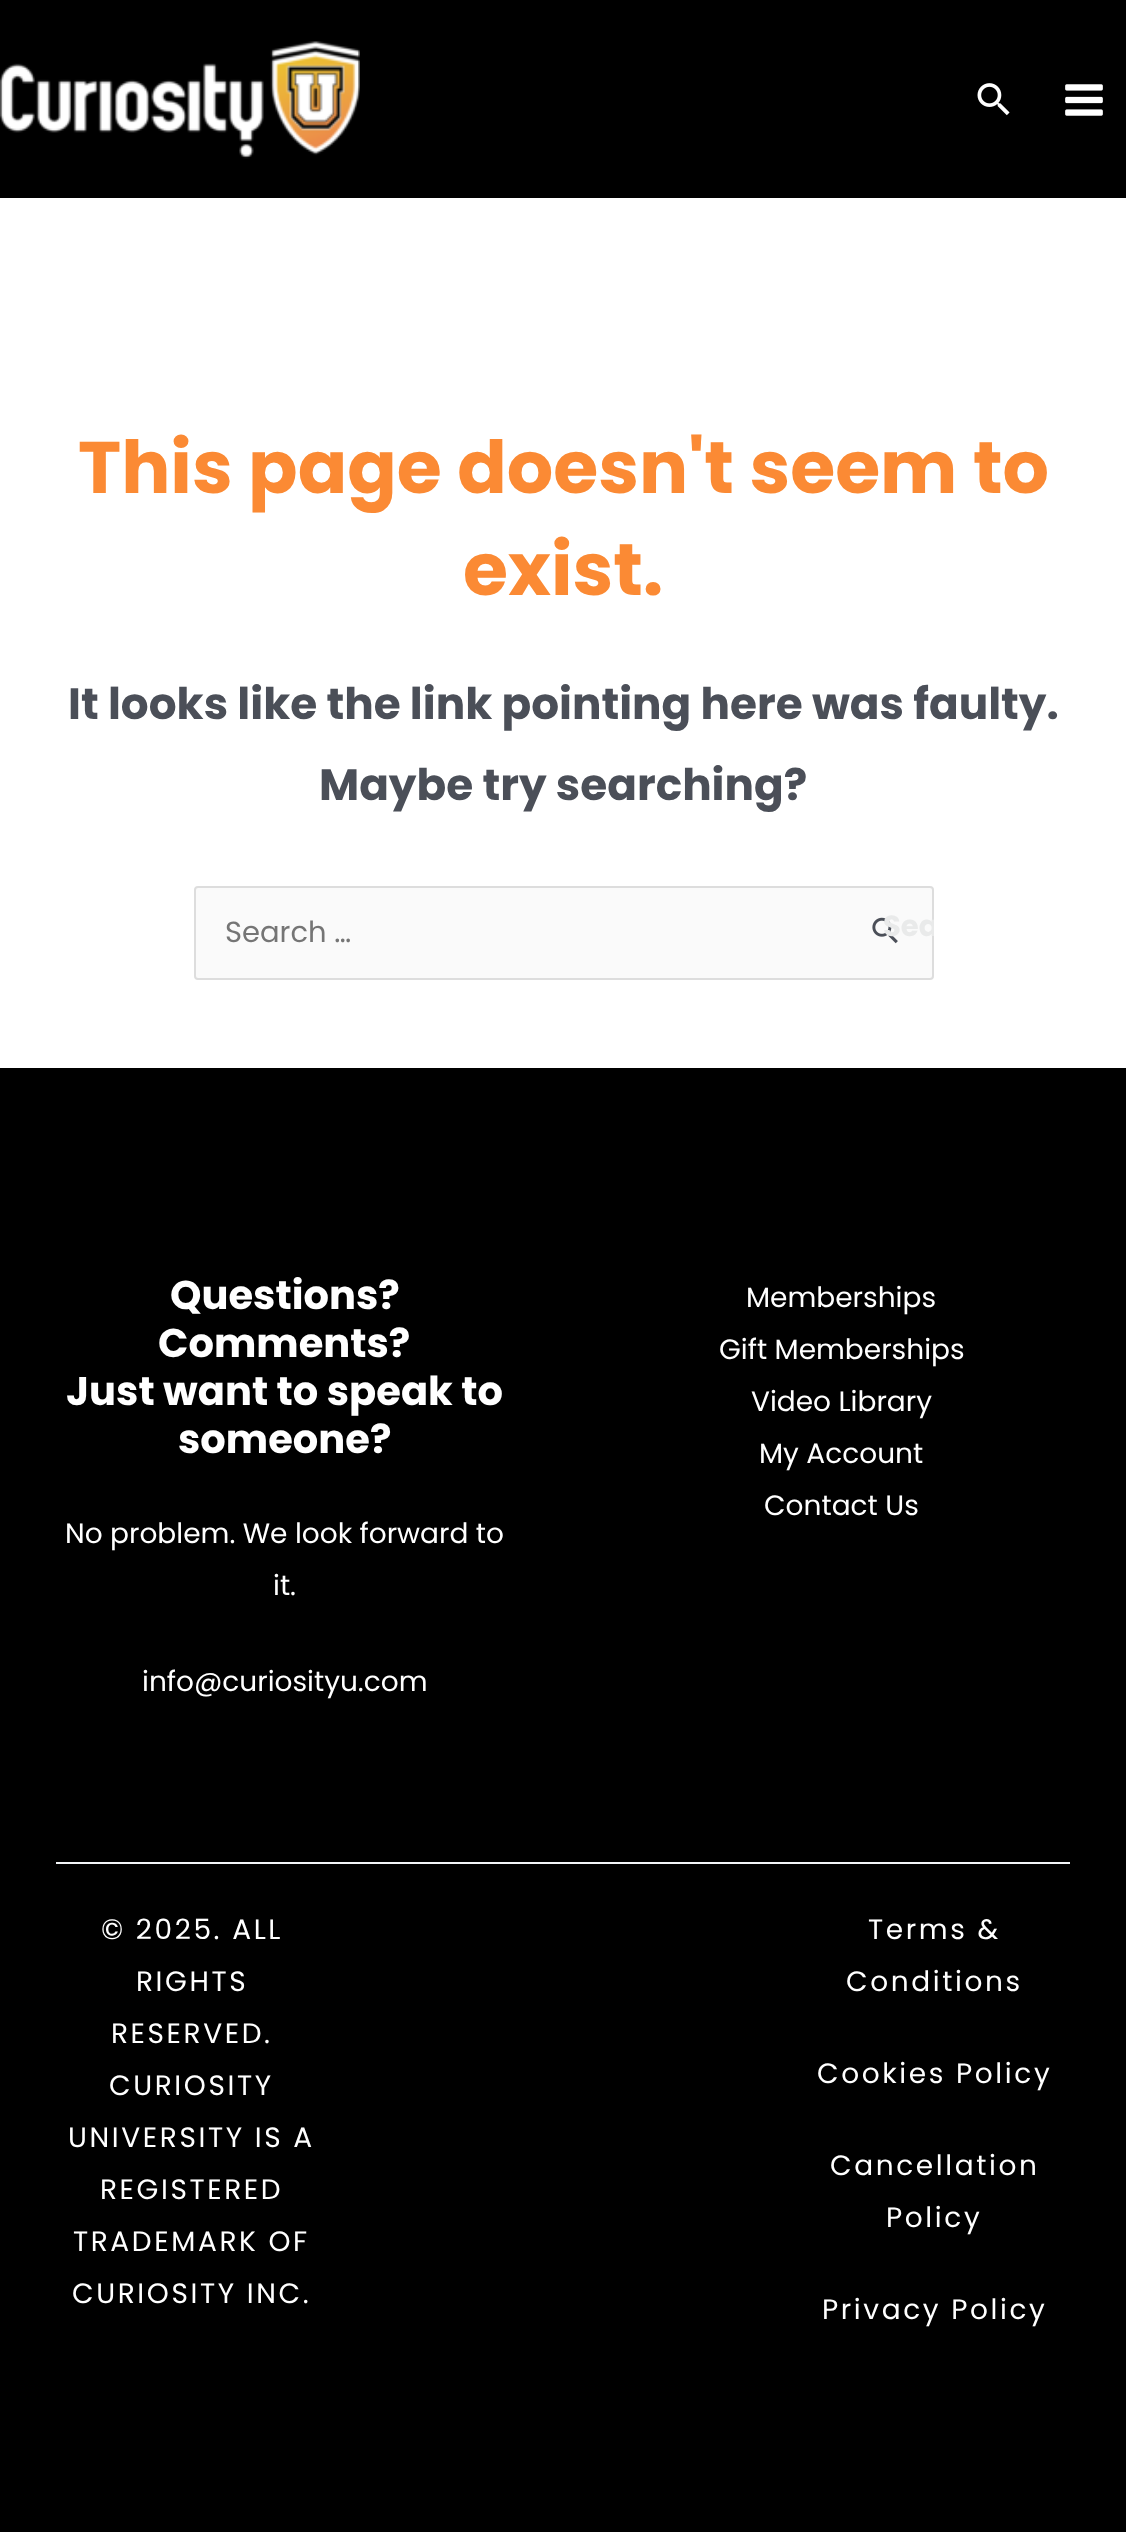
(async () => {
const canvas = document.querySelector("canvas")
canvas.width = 1126
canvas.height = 2532
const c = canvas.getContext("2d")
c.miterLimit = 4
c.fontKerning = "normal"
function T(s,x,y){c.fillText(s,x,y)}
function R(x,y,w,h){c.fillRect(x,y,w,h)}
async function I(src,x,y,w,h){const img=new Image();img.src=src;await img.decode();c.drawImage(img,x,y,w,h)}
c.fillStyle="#fff"
R(0,0,1126,2532)
c.fillStyle="#000"
R(0,0,1126,198)
await I("1.png",0,41,360,118)
await I("2.png",977,83,33,33)
await I("3.png",1065,84,38,32)
c.font="bold 73px Poppins"
c.fillStyle="#fb8a34"
T("This page doesn't seem to",78,493)
T("exist.",463,595)
c.font="bold 43.75px Poppins"
c.fillStyle="#4b4f58"
T("It looks like the link pointing here was faulty.",68,719)
T("Maybe try searching?",319,800)
c.fillStyle="#fafafa"
c.beginPath()
c.roundRect(195,887,738,92,3)
c.fill()
c.strokeStyle="#ddd"
c.lineWidth=2
c.stroke()
await I("4.png",872,917,26,27)
c.save()
c.beginPath()
c.roundRect(844,886,90,80,4)
c.clip()
c.font="bold 29px Poppins"
c.fillStyle="#e9eaea"
T("Sea",883,936)
c.restore()
c.font="29px Poppins"
c.fillStyle="#757575"
T("Search …",225,942)
c.fillStyle="#000"
R(0,1068,1126,1464)
c.font="bold 40px Poppins"
c.fillStyle="#fff"
T("Questions?",170,1309)
T("Comments?",158,1357)
T("Just want to speak to",66,1405)
T("someone?",178,1453)
c.font="28px Poppins"
T("No problem. We look forward to",65,1543)
T("it.",273,1595)
T("info@curiosityu.com",142,1691)
T("Memberships",746,1307)
T("Gift Memberships",719,1359)
T("Video Library",751,1411)
T("My Account",759,1463)
T("Contact Us",764,1515)
c.fillStyle="#f2f5f7"
R(56,1862,1014,2)
c.letterSpacing="2.6px"
c.fillStyle="#fff"
T("© 2025. ALL",101,1939)
T("RIGHTS",136,1991)
T("RESERVED.",111,2043)
T("CURIOSITY",109,2095)
T("UNIVERSITY IS A",68,2147)
T("REGISTERED",100,2199)
T("TRADEMARK OF",73,2251)
T("CURIOSITY INC.",72,2303)
T("Terms &",868,1939)
T("Conditions",846,1991)
T("Cookies Policy",817,2083)
T("Cancellation",830,2175)
T("Policy",886,2227)
T("Privacy Policy",822,2319)
})()
